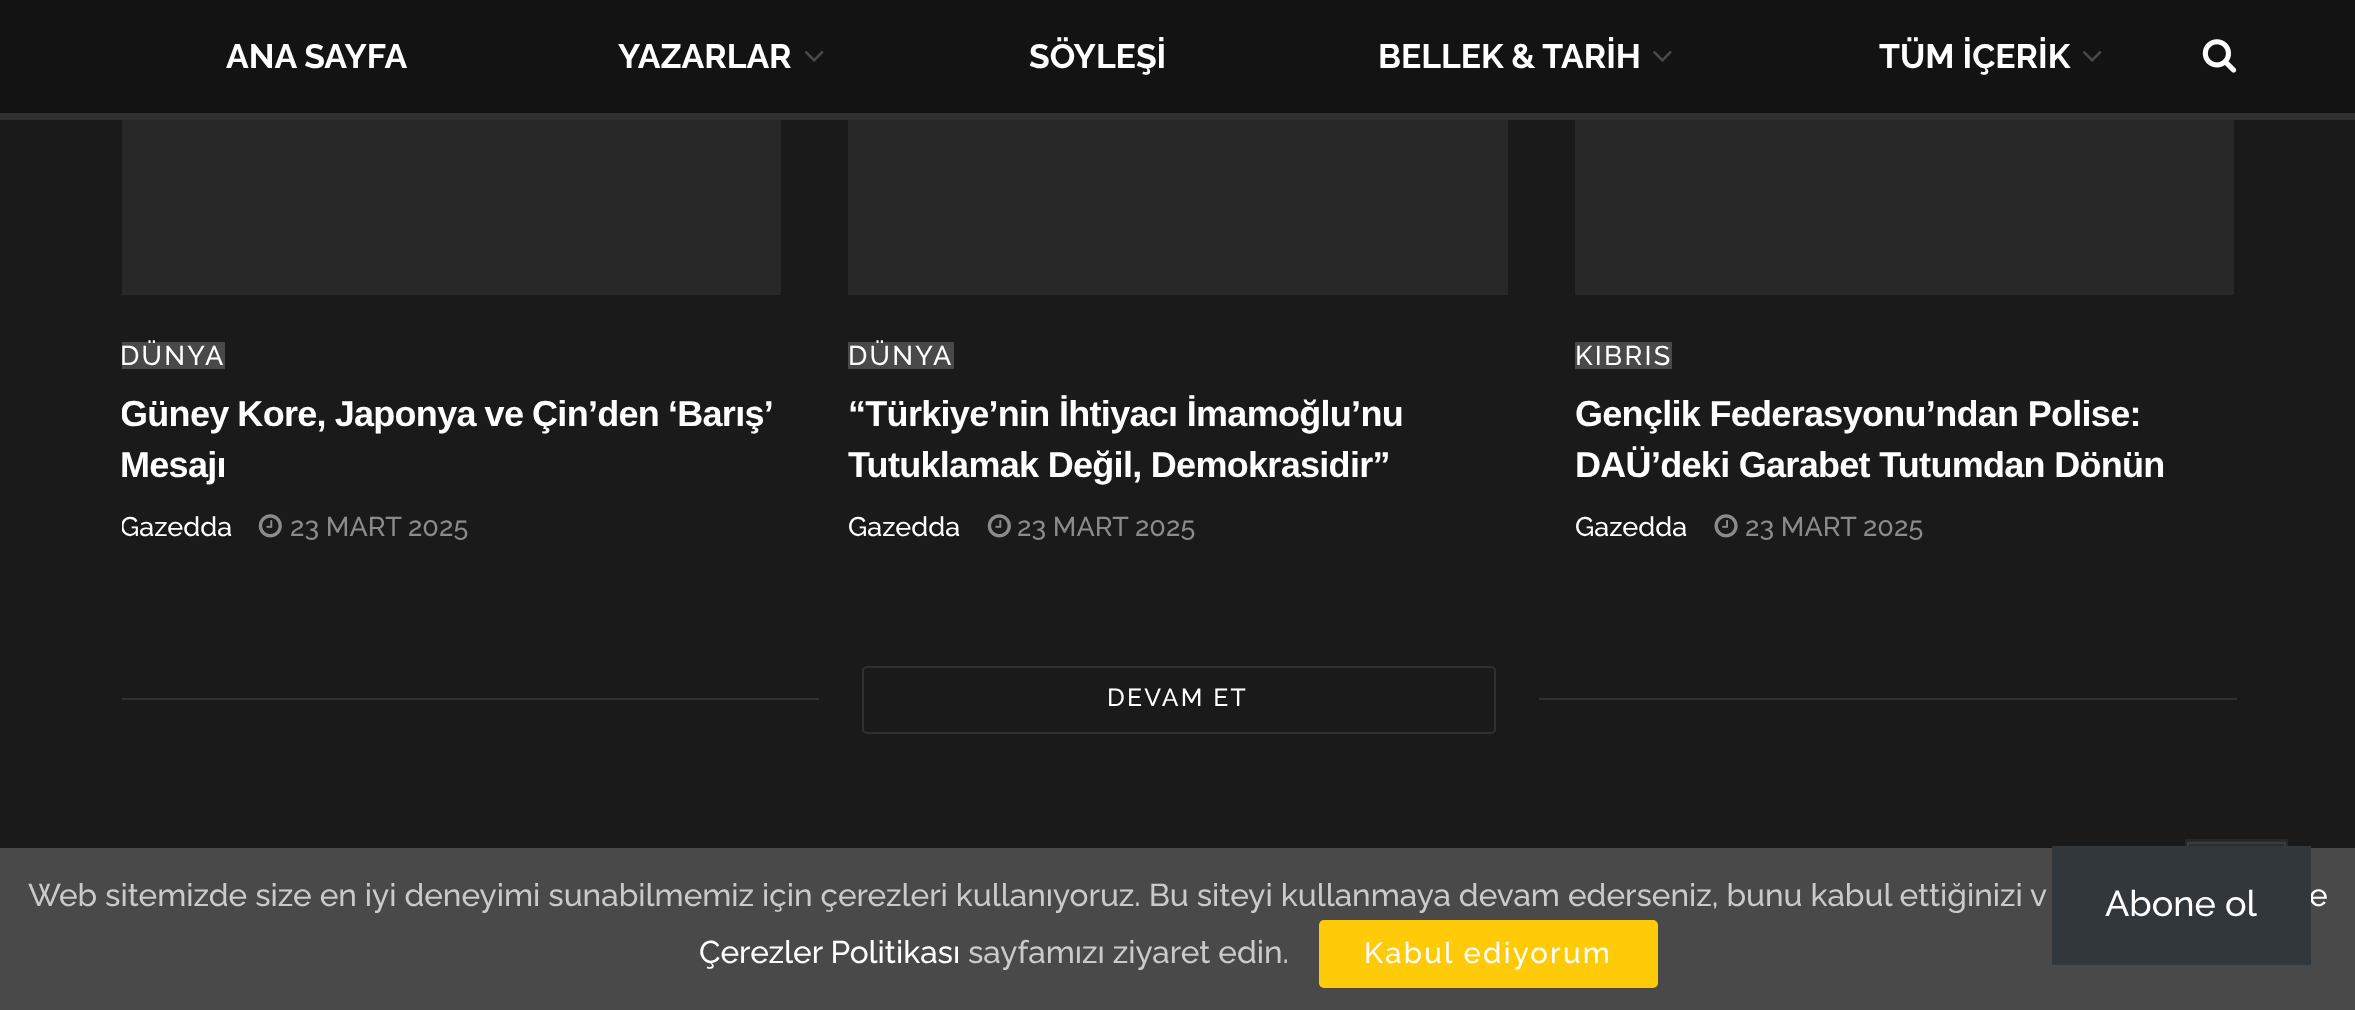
(async () => {
const canvas = document.querySelector("canvas")
canvas.width = 2355
canvas.height = 1010
const c = canvas.getContext("2d")
c.miterLimit = 4
c.fontKerning = "normal"
function T(s,x,y){c.fillText(s,x,y)}
function R(x,y,w,h){c.fillRect(x,y,w,h)}
function Q(x,y,w,h,r){c.beginPath();c.roundRect(x,y,w,h,r);c.fill()}
async function I(src,x,y,w,h){const img=new Image();img.src=src;await img.decode();c.drawImage(img,x,y,w,h)}
c.fillStyle="#1a1a1a"
R(0,0,2355,1010)
c.fillStyle="#2c2c2c"
R(2185,839,103,7)
c.fillStyle="#131313"
R(0,0,2355,113)
c.fillStyle="#303030"
R(0,113,2355,7)
c.font="bold 33.75px Raleway"
c.fillStyle="#fff"
T("ANA SAYFA",226,68)
T("YAZARLAR",618,68)
await I("1.png",804,51,20,11)
T("SÖYLEŞİ",1029,68)
T("BELLEK & TARİH",1378,68)
await I("2.png",1653,51,19,11)
T("TÜM İÇERİK",1879,68)
await I("1.png",2082,51,20,11)
await I("3.png",2202,39,35,34)
c.fillStyle="#282828"
R(122,120,659,175)
c.fillStyle="#494949"
R(122,342,103,27)
c.letterSpacing="2.25px"
c.font="500 27px Raleway"
c.fillStyle="#fff"
T("DÜNYA",120,365)
c.save()
c.beginPath()
c.rect(122,0,2115,621)
c.clip()
c.letterSpacing="-0.7px"
c.wordSpacing="-0.5px"
c.font="bold 36px Liberation Sans"
T("Güney Kore, Japonya ve Çin’den ‘Barış’",120,426)
c.restore()
c.letterSpacing="-0.7px"
c.font="bold 36px Liberation Sans"
T("Mesajı",120,477)
c.save()
c.beginPath()
c.rect(122,0,2115,621)
c.clip()
c.letterSpacing="0px"
c.font="500 27px Raleway"
T("Gazedda",120,536)
c.restore()
await I("4.png",258,514,24,24)
c.letterSpacing="0px"
c.font="500 27px Raleway"
c.fillStyle="#8b8b8b"
T("23 MART 2025",290,536)
c.fillStyle="#282828"
R(848,120,660,175)
c.fillStyle="#494949"
R(848,342,106,27)
c.letterSpacing="2.25px"
c.fillStyle="#fff"
T("DÜNYA",848,365)
c.letterSpacing="-0.7px"
c.font="bold 36px Liberation Sans"
T("“Türkiye’nin İhtiyacı İmamoğlu’nu",848,426)
T("Tutuklamak Değil, Demokrasidir”",848,477)
c.letterSpacing="0px"
c.font="500 27px Raleway"
T("Gazedda",848,536)
await I("4.png",987,514,24,24)
c.fillStyle="#8b8b8b"
T("23 MART 2025",1017,536)
c.fillStyle="#282828"
R(1575,120,659,175)
c.fillStyle="#494949"
R(1575,342,97,27)
c.letterSpacing="2.25px"
c.fillStyle="#fff"
T("KIBRIS",1575,365)
c.letterSpacing="-0.7px"
c.font="bold 36px Liberation Sans"
T("Gençlik Federasyonu’ndan Polise:",1575,426)
T("DAÜ’deki Garabet Tutumdan Dönün",1575,477)
c.letterSpacing="0px"
c.font="500 27px Raleway"
T("Gazedda",1575,536)
await I("5.png",1714,514,24,24)
c.fillStyle="#8b8b8b"
T("23 MART 2025",1745,536)
c.beginPath()
c.roundRect(863,667,632,66,4)
c.strokeStyle="#303030"
c.lineWidth=2
c.stroke()
c.fillStyle="#303030"
R(122,698,697,2)
c.letterSpacing="2.25px"
c.font="500 24.75px Raleway"
c.fillStyle="#fff"
T("DEVAM ET",1107,706)
c.fillStyle="#303030"
R(1539,698,698,2)
c.strokeStyle="#ffffff14"
c.strokeRect(2188,843,97,97)
c.strokeStyle="#00000017"
c.strokeRect(2186,840,101,102)
c.fillStyle="#494949"
R(0,848,2355,162)
c.letterSpacing="0px"
c.font="500 31.5px Raleway"
c.fillStyle="#cacaca"
T("Web sitemizde size en iyi deneyimi sunabilmemiz için çerezleri kullanıyoruz. Bu siteyi kullanmaya devam ederseniz, bunu kabul ettiğinizi v",28,906)
c.fillStyle="#fff"
T("e",2309,906)
T("Çerezler Politikası",699,963)
c.fillStyle="#cacaca"
T("sayfamızı ziyaret edin.",968,963)
c.fillStyle="#ffcb09"
Q(1319,920,339,68,5)
c.letterSpacing="2.25px"
c.font="500 29.25px Raleway"
c.fillStyle="#fff"
T("Kabul ediyorum",1364,963)
c.fillStyle="#32373c"
R(2052,846,259,119)
c.letterSpacing="0px"
c.font="500 36px Raleway"
c.fillStyle="#fff"
T("Abone ol",2105,916)
})()
